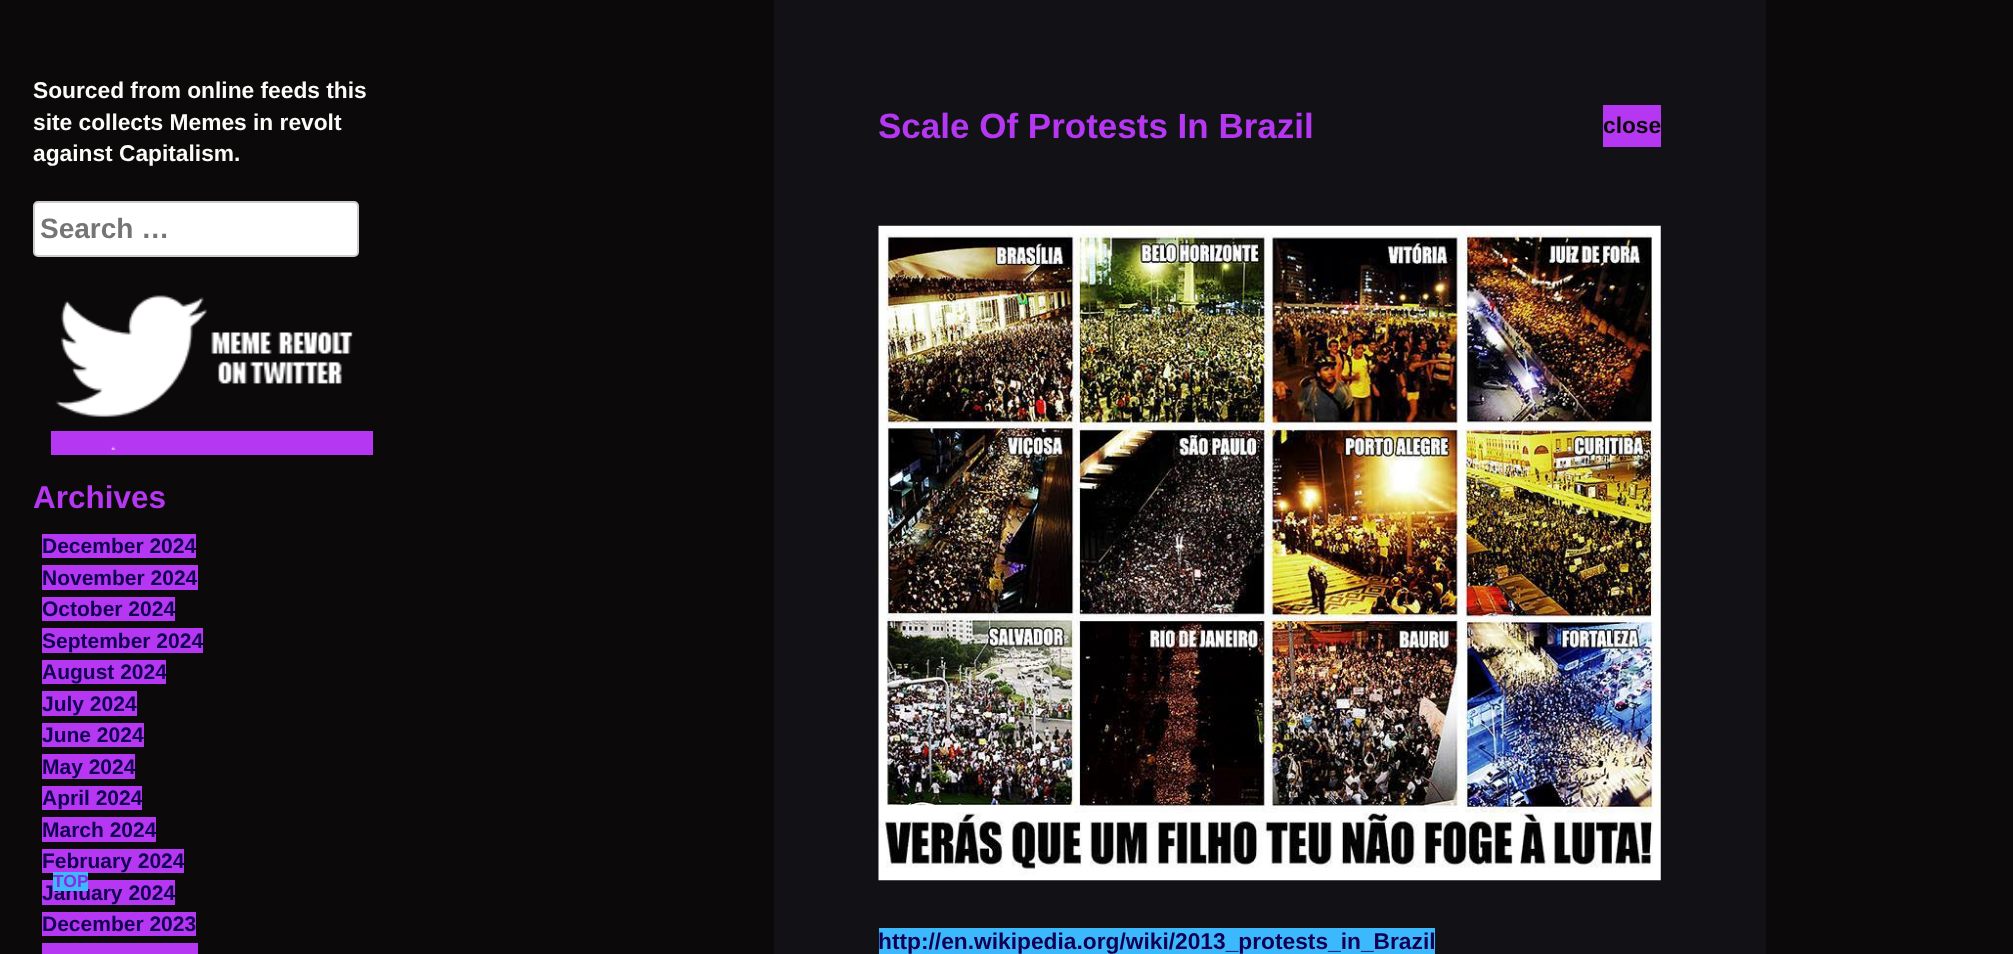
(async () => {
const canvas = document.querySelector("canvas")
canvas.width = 2013
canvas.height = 954
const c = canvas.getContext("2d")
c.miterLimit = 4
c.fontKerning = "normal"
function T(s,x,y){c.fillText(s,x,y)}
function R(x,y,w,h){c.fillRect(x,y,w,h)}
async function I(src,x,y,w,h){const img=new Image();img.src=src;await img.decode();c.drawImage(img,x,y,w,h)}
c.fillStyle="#0c090a"
R(0,0,2013,954)
c.font="bold 22.75px Liberation Sans"
c.fillStyle="#fbfbf8"
T("Sourced from online feeds this",33,98)
T("site collects Memes in revolt",33,130)
T("against Capitalism.",33,161)
c.fillStyle="#fff"
c.beginPath()
c.roundRect(34,202,324,54,4)
c.fill()
c.strokeStyle="#ccc"
c.lineWidth=2
c.stroke()
c.font="bold 28px Liberation Sans"
c.fillStyle="#757575"
T("Search …",40,238)
c.fillStyle="#b537f2"
R(51,431,322,24)
await I("1.png",55,295,298,155)
c.font="bold 31.5px Liberation Sans"
T("Archives",33,508)
R(42,534,154,24)
c.font="bold 21px Liberation Sans"
c.fillStyle="#120052"
T("December 2024",42,553)
c.fillStyle="#b537f2"
R(42,565,156,25)
c.fillStyle="#120052"
T("November 2024",42,585)
c.fillStyle="#b537f2"
R(42,597,133,24)
c.fillStyle="#120052"
T("October 2024",42,616)
c.fillStyle="#b537f2"
R(42,628,161,25)
c.fillStyle="#120052"
T("September 2024",42,648)
c.fillStyle="#b537f2"
R(42,660,124,24)
c.fillStyle="#120052"
T("August 2024",42,679)
c.fillStyle="#b537f2"
R(42,691,95,25)
c.fillStyle="#120052"
T("July 2024",42,711)
c.fillStyle="#b537f2"
R(42,723,102,24)
c.fillStyle="#120052"
T("June 2024",42,742)
c.fillStyle="#b537f2"
R(42,754,93,25)
c.fillStyle="#120052"
T("May 2024",42,774)
c.fillStyle="#b537f2"
R(42,786,100,24)
c.fillStyle="#120052"
T("April 2024",42,805)
c.fillStyle="#b537f2"
R(42,817,114,25)
c.fillStyle="#120052"
T("March 2024",42,837)
c.fillStyle="#b537f2"
R(42,849,142,24)
c.fillStyle="#120052"
T("February 2024",42,868)
c.fillStyle="#b537f2"
R(42,880,133,25)
c.fillStyle="#120052"
T("January 2024",42,900)
c.fillStyle="#b537f2"
R(42,912,154,24)
c.fillStyle="#120052"
T("December 2023",42,931)
c.fillStyle="#b537f2"
R(42,943,156,11)
c.fillStyle="#121216"
R(774,0,992,954)
c.font="bold 35px Liberation Sans"
c.fillStyle="#b537f2"
T("Scale Of Protests In Brazil",878,138)
R(1603,105,58,42)
c.font="bold 22.75px Liberation Sans"
c.fillStyle="#0c090a"
T("close",1603,133)
await I("2.png",878,225,783,656)
c.fillStyle="#3cb9fc"
R(879,928,556,26)
c.fillStyle="#120052"
T("http://en.wikipedia.org/wiki/2013_protests_in_Brazil",878,949)
c.fillStyle="#3cb9fc"
R(53,872,35,19)
c.font="bold 17.5px Liberation Sans"
c.fillStyle="#8a2be2"
T("TOP",53,887)
})()
